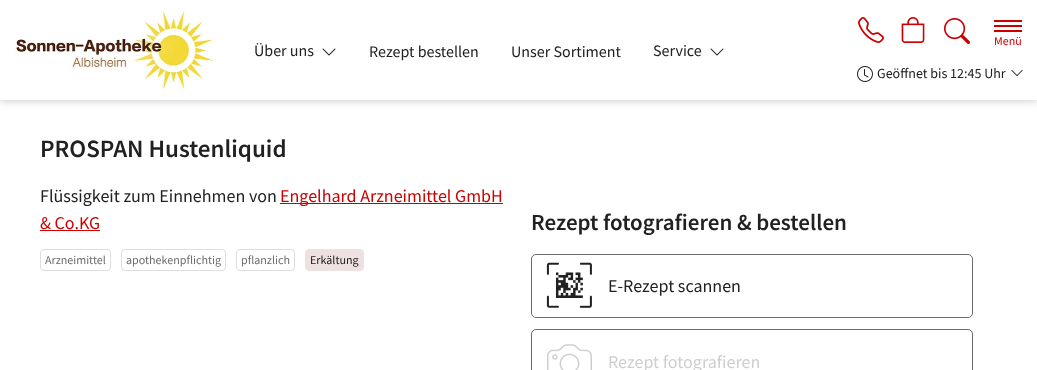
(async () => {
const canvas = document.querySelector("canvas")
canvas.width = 1037
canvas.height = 370
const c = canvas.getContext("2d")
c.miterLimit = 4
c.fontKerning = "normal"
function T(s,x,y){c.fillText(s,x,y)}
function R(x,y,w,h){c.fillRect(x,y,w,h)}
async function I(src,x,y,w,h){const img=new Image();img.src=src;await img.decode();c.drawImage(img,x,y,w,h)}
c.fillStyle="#fff"
R(0,0,1037,370)
c.fillStyle="#00000040"
c.filter="blur(5px)"
c.beginPath()
c.rect(0,0,1037,100)
c.fill()
c.filter="none"
c.fillStyle="#fff"
R(0,0,1037,100)
await I("1.png",15,10,198,80)
c.font="16px Source Sans Pro"
c.fillStyle="#212121"
T("Über uns",254,56)
await I("2.png",322,48,14,8)
T("Rezept bestellen",369,57)
T("Unser Sortiment",511,57)
T("Service",653,56)
await I("2.png",710,48,14,8)
await I("3.png",858,17,26,26)
await I("4.png",901,17,24,26)
await I("5.png",944,18,26,26)
c.fillStyle="#c00"
R(994,25,28,2)
R(994,20,28,2)
R(994,30,28,2)
c.font="12px Source Sans Pro"
T("Menü",994,45)
await I("6.png",857,66,16,16)
c.font="14px Source Sans Pro"
c.fillStyle="#212121"
T("Geöffnet bis 12:45 Uhr",877,78)
await I("7.png",1011,70,12,6)
c.font="600 25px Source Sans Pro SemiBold"
T("PROSPAN Hustenliquid",40,157)
c.font="18px Source Sans Pro"
T("Flüssigkeit zum Einnehmen von",40,202)
c.fillStyle="#c00"
R(280,203,223,1)
T("Engelhard Arzneimittel GmbH",280,202)
T("& Co.KG",40,229)
R(40,230,60,1)
c.beginPath()
c.roundRect(40.5,249.5,70,21,3.5)
c.strokeStyle="#dedede"
c.stroke()
c.font="12px Source Sans Pro"
c.fillStyle="#6c6c6c"
T("Arzneimittel",45,264)
c.beginPath()
c.roundRect(121.5,249.5,104,21,3.5)
c.stroke()
T("apothekenpflichtig",126,264)
c.beginPath()
c.roundRect(236.5,249.5,58,21,3.5)
c.stroke()
T("pflanzlich",241,264)
c.fillStyle="#ede1e2"
c.beginPath()
c.roundRect(305.5,249.5,58,21,3.5)
c.fill()
c.strokeStyle="#ede1e2"
c.stroke()
c.fillStyle="#212121"
T("Erkältung",310,264)
c.font="600 23px Source Sans Pro SemiBold"
T("Rezept fotografieren & bestellen",531,230)
c.beginPath()
c.roundRect(531.5,254.5,441,63,4.5)
c.strokeStyle="#6c6c6c"
c.stroke()
await I("8.png",546,262,46,46)
c.font="18px Source Sans Pro"
T("E-Rezept scannen",608,292)
c.beginPath()
c.roundRect(531.5,329.5,441,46,4.5)
c.stroke()
await I("9.png",547,344,45,26)
c.fillStyle="#cecece"
T("Rezept fotografieren",608,368)
})()
